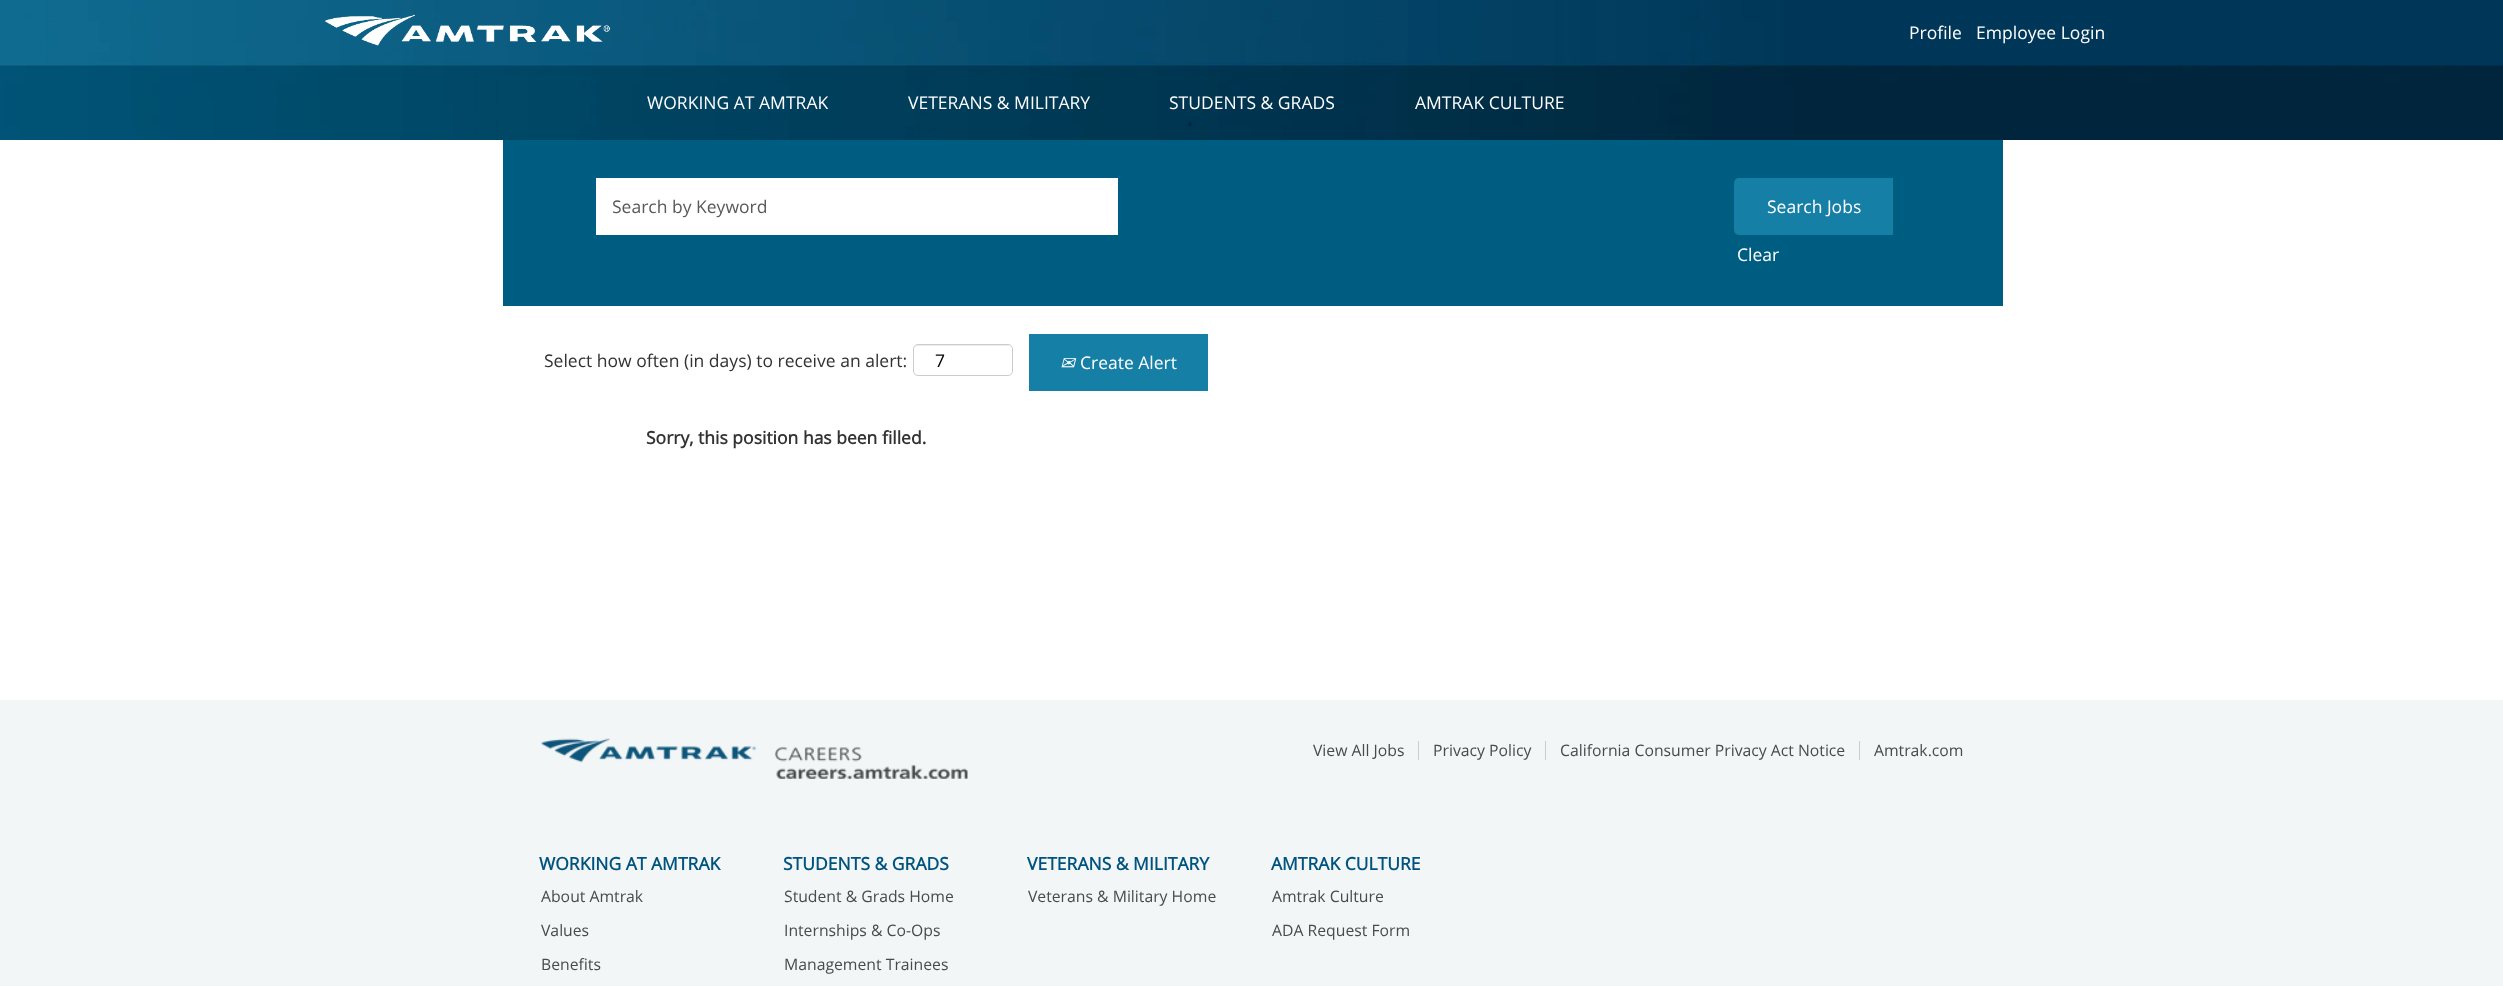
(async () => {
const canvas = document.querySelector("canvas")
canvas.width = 2503
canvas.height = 986
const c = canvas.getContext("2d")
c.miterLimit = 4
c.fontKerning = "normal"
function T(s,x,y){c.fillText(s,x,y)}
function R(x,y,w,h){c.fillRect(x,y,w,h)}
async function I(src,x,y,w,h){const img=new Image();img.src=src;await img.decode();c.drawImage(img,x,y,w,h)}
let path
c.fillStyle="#fff"
R(0,0,2503,986)
await I("1.png",0,0,2503,140)
await I("2.png",324,14,286,32)
c.font="17.5px Open Sans"
T("Profile",1909,39)
T("Employee Login",1976,39)
T("WORKING AT AMTRAK",647,109)
T("VETERANS & MILITARY",908,109)
T("STUDENTS & GRADS",1169,109)
T("AMTRAK CULTURE",1415,109)
c.fillStyle="#005d82"
R(503,140,1500,166)
c.fillStyle="#fff"
R(596,178,522,57)
c.fillStyle="#595959"
T("Search by Keyword",612,213)
c.fillStyle="#167fa6"
c.beginPath()
c.roundRect(1734,178,159,57,[5,0,0,5])
c.fill()
c.fillStyle="#fff"
T("Search Jobs",1767,213)
T("Clear",1737,261)
c.fillStyle="#333"
T("Select how often (in days) to receive an alert:",544,367)
c.fillStyle="#ececec"
path = new Path2D("M918 346h90c2 0 3 2 3 4c0-9-14-5-19-5h-59c-5 0-19-4-19 5c0-2 1-4 4-4z")
c.fill(path)
c.beginPath()
c.roundRect(913.5,344.5,99,31,4.5)
c.strokeStyle="#ccc"
c.stroke()
c.fillStyle="#000"
T("7",935,367)
c.fillStyle="#167fa6"
R(1029,334,179,57)
c.font="italic 17.5px DejaVu Sans"
c.fillStyle="#fff"
T("✉",1060,369)
c.font="17.5px Open Sans"
T("Create Alert",1080,369)
c.font="bold 17.5px Open Sans"
c.fillStyle="#333"
T("Sorry, this position has been filled.",646,444)
c.fillStyle="#f2f6f7"
R(0,700,2503,286)
await I("3.png",541,738,427,41)
c.fillStyle="#ccc"
R(1418,741,1,19)
c.font="15.75px Open Sans"
c.fillStyle="#4a4a4a"
T("View All Jobs",1313,756)
c.fillStyle="#ccc"
R(1545,741,1,19)
c.fillStyle="#4a4a4a"
T("Privacy Policy",1433,756)
c.fillStyle="#ccc"
R(1859,741,1,19)
c.fillStyle="#4a4a4a"
T("California Consumer Privacy Act Notice",1560,756)
T("Amtrak.com",1874,756)
c.font="bold 17.5px Open Sans"
c.fillStyle="#00537e"
T("WORKING AT AMTRAK",539,870)
c.font="15.75px Open Sans"
c.fillStyle="#4a4a4a"
T("About Amtrak",541,902)
T("Values",541,936)
T("Benefits",541,970)
c.font="bold 17.5px Open Sans"
c.fillStyle="#00537e"
T("STUDENTS & GRADS",783,870)
c.font="15.75px Open Sans"
c.fillStyle="#4a4a4a"
T("Student & Grads Home",784,902)
T("Internships & Co-Ops",784,936)
T("Management Trainees",784,970)
c.font="bold 17.5px Open Sans"
c.fillStyle="#00537e"
T("VETERANS & MILITARY",1027,870)
c.font="15.75px Open Sans"
c.fillStyle="#4a4a4a"
T("Veterans & Military Home",1028,902)
c.font="bold 17.5px Open Sans"
c.fillStyle="#00537e"
T("AMTRAK CULTURE",1271,870)
c.font="15.75px Open Sans"
c.fillStyle="#4a4a4a"
T("Amtrak Culture",1272,902)
T("ADA Request Form",1272,936)
})()
